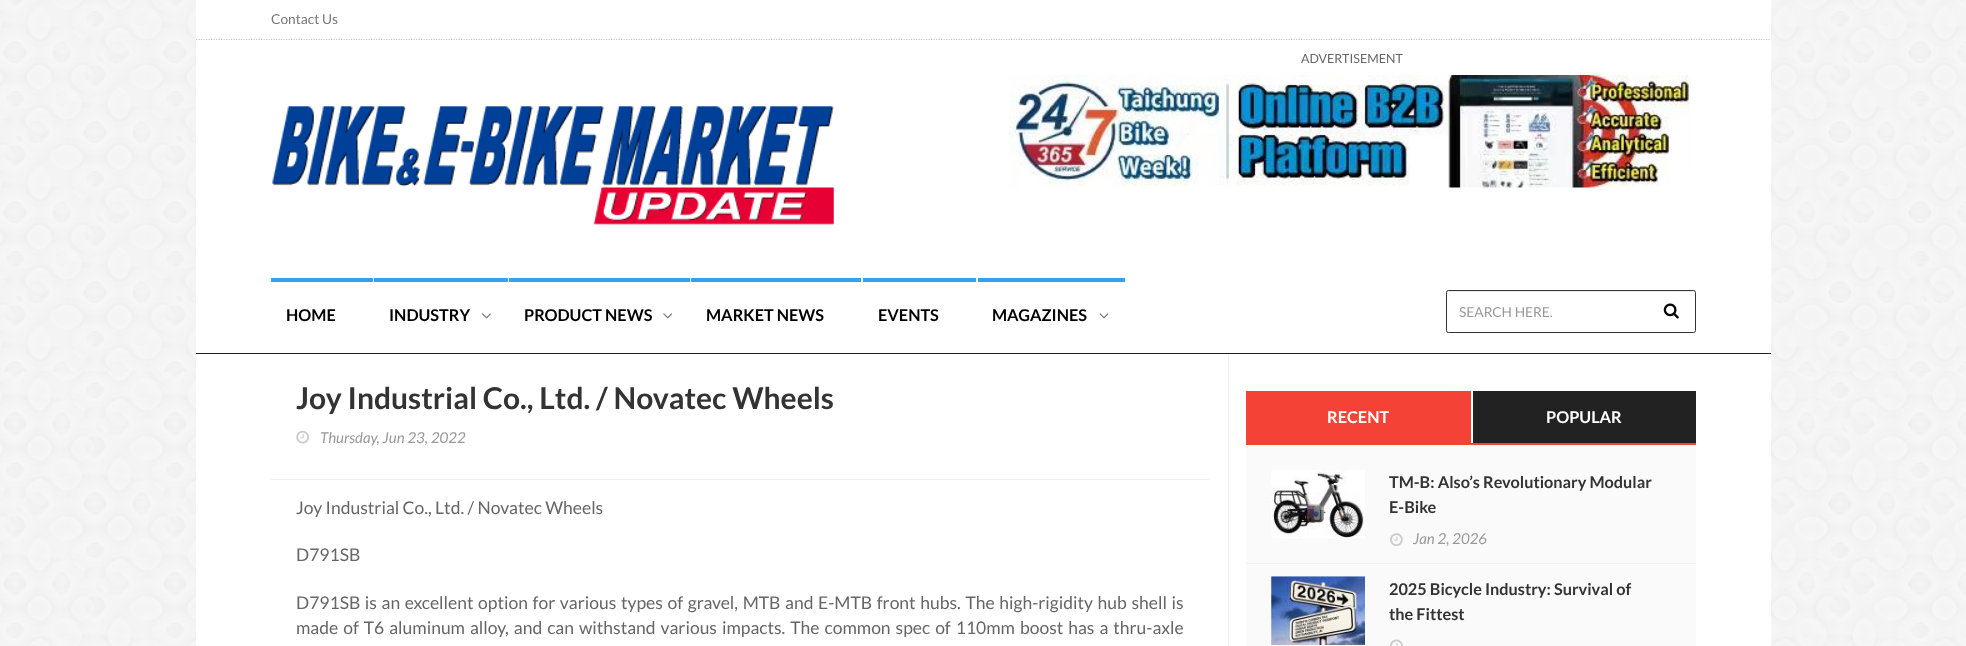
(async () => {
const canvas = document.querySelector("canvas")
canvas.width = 1966
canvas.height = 646
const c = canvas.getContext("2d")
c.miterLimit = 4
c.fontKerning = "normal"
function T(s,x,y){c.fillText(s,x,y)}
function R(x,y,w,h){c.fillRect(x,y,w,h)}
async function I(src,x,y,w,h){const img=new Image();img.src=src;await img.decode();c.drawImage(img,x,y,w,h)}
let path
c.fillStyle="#fff"
R(0,0,1966,646)
await I("1.png",0,0,1966,646)
R(196,354,1575,292)
R(196,0,1575,353)
path = new Path2D("M196 39.5h1575")
c.strokeStyle="#c6c6c6"
c.lineWidth=1.2
c.setLineDash([1.25,1.25])
c.stroke(path)
c.font="13.75px Lato"
c.fillStyle="#777"
T("Contact Us",271,24)
c.font="12.5px Lato"
c.fillStyle="#666"
T("ADVERTISEMENT",1301,63)
await I("2.png",1009,75,681,113)
await I("3.png",272,106,562,120)
c.fillStyle="#202020"
R(196,353,1575,1)
c.fillStyle="#33a3f1"
R(271,278,102,4)
c.font="bold 16.25px Lato"
c.fillStyle="#000"
T("HOME",286,321)
c.fillStyle="#33a3f1"
R(374,278,134,4)
c.fillStyle="#000"
T("INDUSTRY",389,321)
await I("4.png",482,313,9,6)
c.fillStyle="#33a3f1"
R(509,278,181,4)
c.fillStyle="#000"
T("PRODUCT NEWS",524,321)
await I("5.png",663,313,10,6)
c.fillStyle="#33a3f1"
R(691,278,170,4)
c.fillStyle="#000"
T("MARKET NEWS",706,321)
c.fillStyle="#33a3f1"
R(863,278,113,4)
c.fillStyle="#000"
T("EVENTS",878,321)
c.fillStyle="#33a3f1"
R(978,278,147,4)
c.fillStyle="#000"
T("MAGAZINES",992,321)
await I("6.png",1099,313,10,6)
c.fillStyle="#ececec"
path = new Path2D("M1449 292h245l1 2c0-1 0-3-1-3h-246v3c0-1 0-2 1-2z")
c.fill(path)
c.beginPath()
c.roundRect(1446.5,290.5,249,42,2)
c.strokeStyle="#333"
c.lineWidth=1
c.setLineDash([])
c.stroke()
c.font="13.75px Lato"
c.fillStyle="#999"
T("SEARCH HERE.",1459,317)
await I("7.png",1663,303,16,16)
c.fillStyle="#f0f0f0"
R(271,479,938,1)
c.font="bold 30px Lato"
c.fillStyle="#333"
T("Joy Industrial Co., Ltd. / Novatec Wheels",296,409)
await I("8.png",296,430,13,14)
c.font="italic 15px Lato"
c.fillStyle="#999"
T("Thursday, Jun 23, 2022",320,443)
c.font="17.5px Lato"
c.fillStyle="#666"
T("Joy Industrial Co., Ltd. / Novatec Wheels",296,514)
T("D791SB",296,561)
c.wordSpacing="1.25px"
T("D791SB is an excellent option for various types of gravel, MTB and E-MTB front hubs. The high-rigidity hub shell is",296,609)
c.wordSpacing="1.6px"
T("made of T6 aluminum alloy, and can withstand various impacts. The common spec of 110mm boost has a thru-axle",296,634)
c.fillStyle="#f0f0f0"
R(1228,354,1,292)
c.fillStyle="#f44336"
R(1246,443,450,2)
R(1246,391,225,52)
c.wordSpacing="0px"
c.font="bold 16.25px Lato"
c.fillStyle="#fff"
T("RECENT",1327,423)
c.fillStyle="#222"
R(1473,391,223,52)
c.fillStyle="#fff"
T("POPULAR",1546,423)
c.fillStyle="#fafafa"
R(1246,445,450,201)
c.fillStyle="#f0f0f0"
R(1246,563,450,1)
await I("9.png",1271,470,94,68)
c.fillStyle="#333"
T("TM-B: Also’s Revolutionary Modular",1389,488)
T("E-Bike",1389,513)
await I("10.png",1390,533,13,13)
c.font="italic 15px Lato"
c.fillStyle="#999"
T("Jan 2, 2026",1413,544)
await I("11.png",1271,576,94,69)
c.font="bold 16.25px Lato"
c.fillStyle="#333"
T("2025 Bicycle Industry: Survival of",1389,595)
T("the Fittest",1389,620)
await I("12.png",1390,639,13,7)
})()
